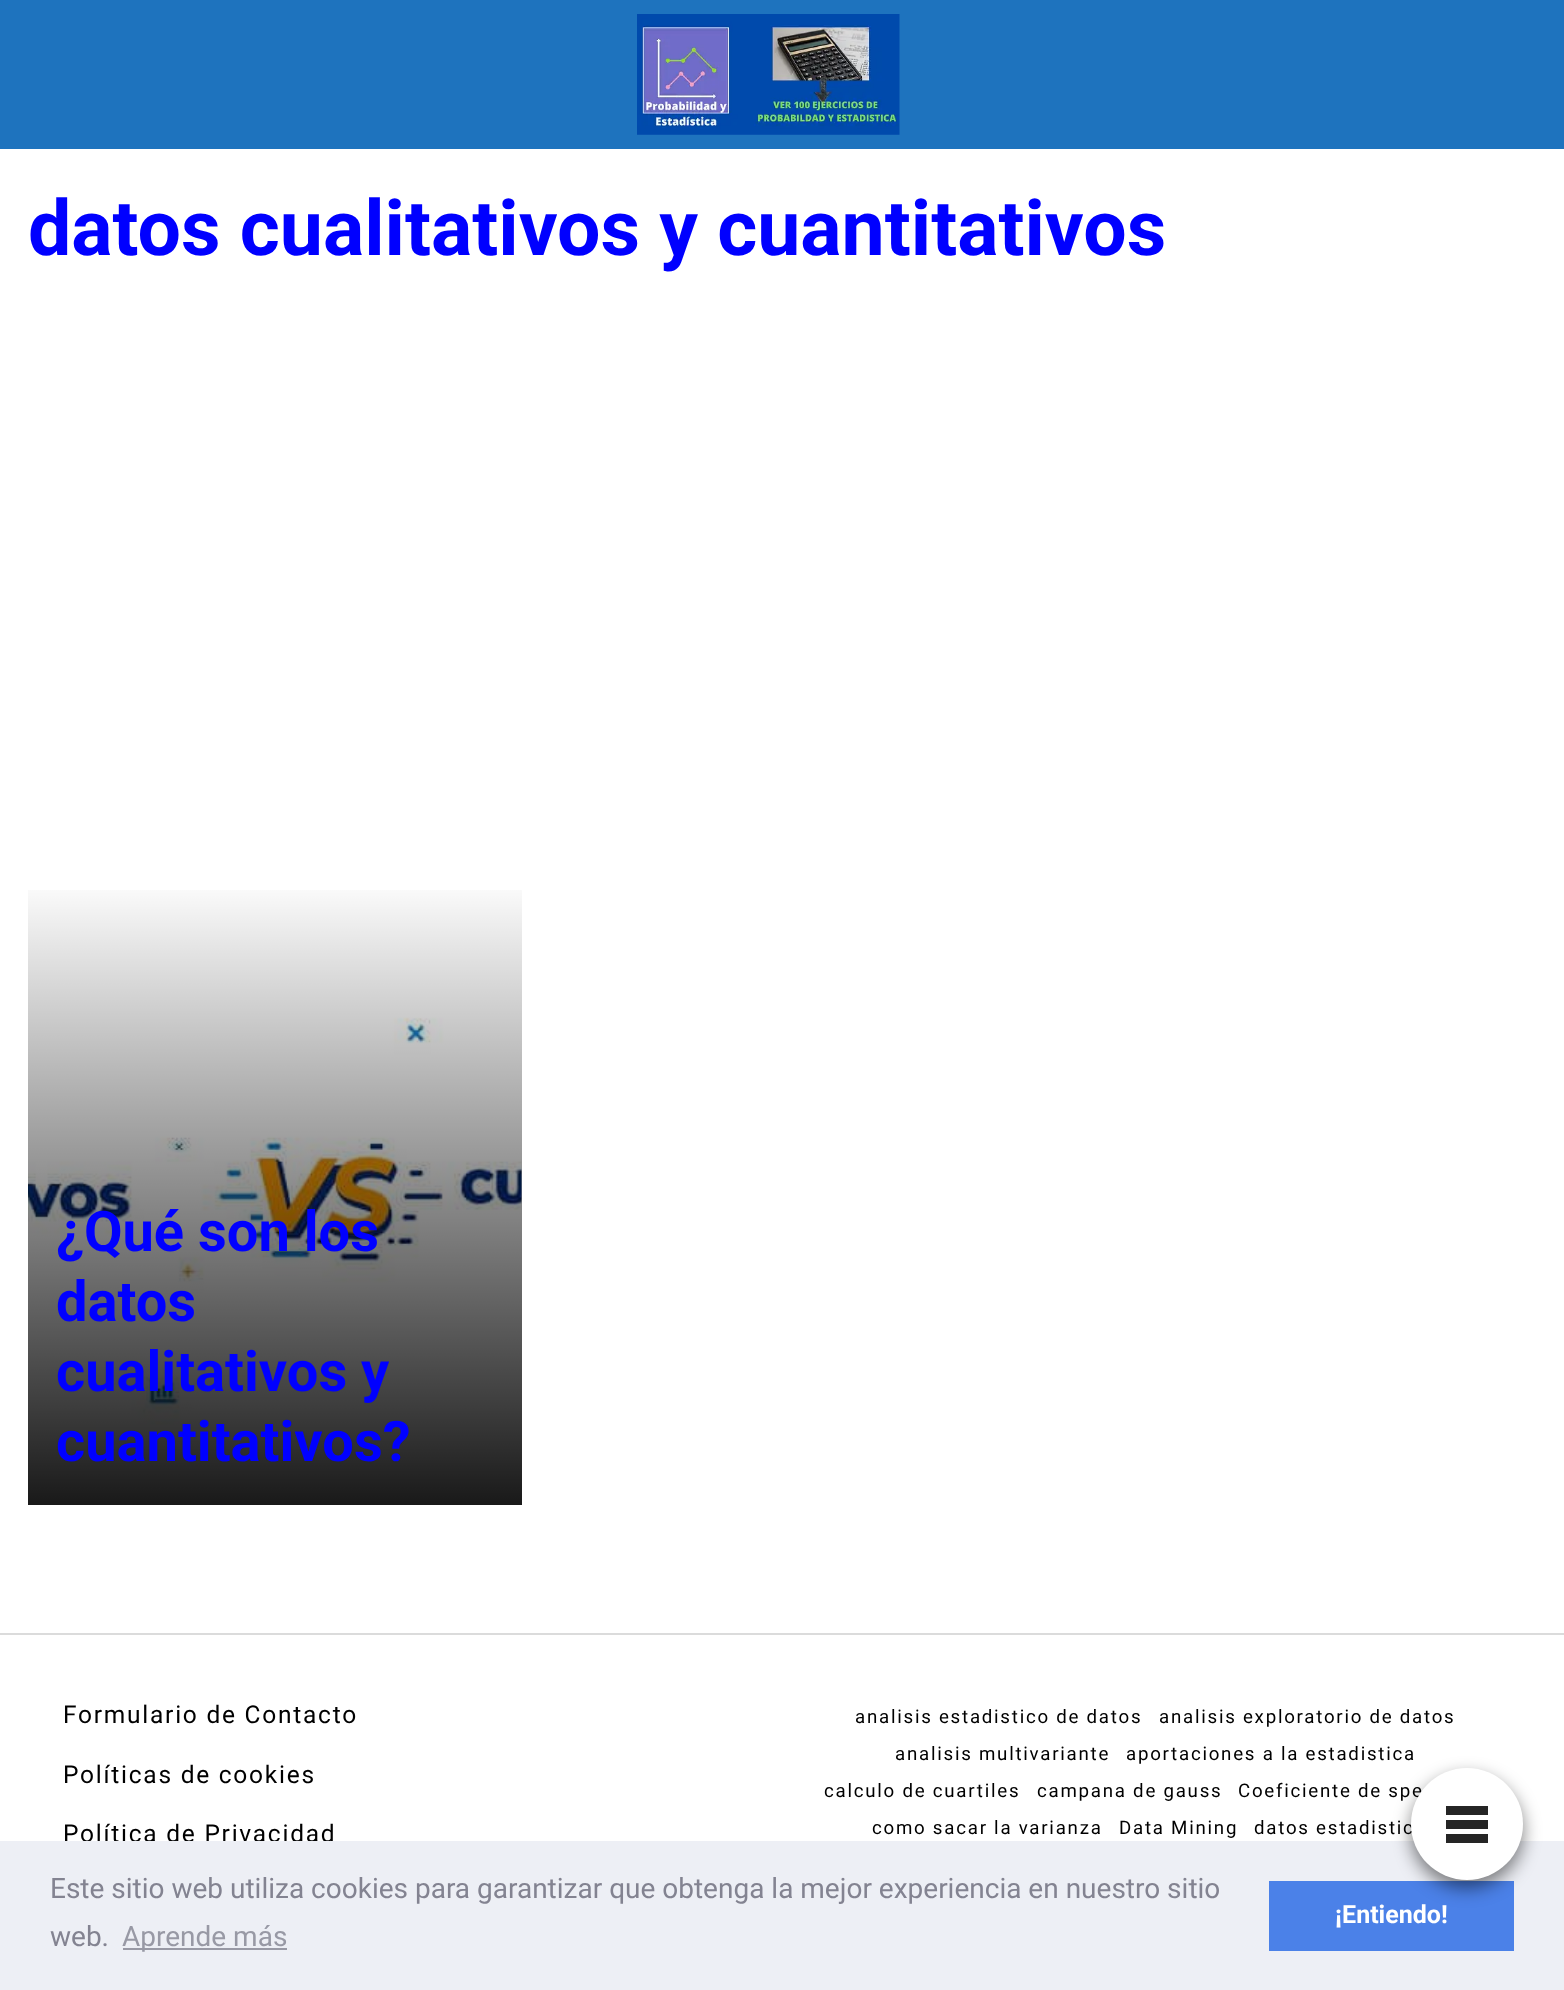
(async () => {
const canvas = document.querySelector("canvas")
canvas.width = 1564
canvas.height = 1990
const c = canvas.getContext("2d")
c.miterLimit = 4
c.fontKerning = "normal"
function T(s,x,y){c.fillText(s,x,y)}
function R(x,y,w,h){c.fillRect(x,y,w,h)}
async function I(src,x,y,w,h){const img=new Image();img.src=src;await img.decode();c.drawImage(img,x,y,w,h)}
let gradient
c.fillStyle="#fff"
R(0,0,1564,1990)
c.fillStyle="#1e73be"
R(0,0,1564,149)
await I("1.png",637,14,263,121)
c.letterSpacing="1.75px"
c.font="24.5px Roboto"
c.fillStyle="#000"
T("Política de Privacidad",63,1842)
c.fillStyle="#edeff5"
R(0,1841,1564,149)
c.fillStyle="#4b81e8"
R(1269,1881,245,70)
c.fillStyle="#00000080"
c.filter="blur(9px)"
c.beginPath()
c.roundRect(1411,1776,112,112,56)
c.fill()
c.filter="none"
c.font="18.7px Roboto"
c.fillStyle="#000"
T("Coeficiente de spe",1238,1797)
T("datos estadistic",1254,1834)
c.fillStyle="#fff"
c.beginPath()
c.arc(1467,1824,56,0,7)
c.fill()
c.fillStyle="#252525"
R(1446,1820,42,9)
R(1446,1806,42,9)
R(1446,1834,42,9)
c.letterSpacing="0px"
c.font="bold 77px Roboto"
c.fillStyle="#00f"
T("datos cualitativos y cuantitativos",28,255)
await I("2.png",28,1017,494,408)
gradient = c.createLinearGradient(275,875,275,1505)
gradient.addColorStop(0,"#00000000")
gradient.addColorStop(1,"#000000e6")
c.fillStyle = gradient
R(28,890,494,615)
c.font="bold 56px Roboto"
c.fillStyle="#00f"
T("¿Qué son los",56,1251)
T("datos",56,1321)
T("cualitativos y",56,1391)
T("cuantitativos?",56,1461)
c.fillStyle="#dbdbdb"
R(0,1633,1564,2)
c.letterSpacing="1.75px"
c.font="24.5px Roboto"
c.fillStyle="#000"
T("Formulario de Contacto",63,1723)
T("Políticas de cookies",63,1783)
c.font="18.7px Roboto"
T("analisis estadistico de datos",855,1723)
T("analisis exploratorio de datos",1159,1723)
T("analisis multivariante",895,1760)
T("aportaciones a la estadistica",1126,1760)
T("calculo de cuartiles",824,1797)
T("campana de gauss",1037,1797)
T("como sacar la varianza",872,1834)
T("Data Mining",1119,1834)
c.letterSpacing="0px"
c.font="28px Roboto"
c.fillStyle="#838391"
T("Este sitio web utiliza cookies para garantizar que obtenga la mejor experiencia en nuestro sitio",50,1898)
T("web.",50,1946)
c.fillStyle="#9899a5"
R(123,1948,164,2)
T("Aprende más",122,1946)
c.font="bold 25px Roboto"
c.fillStyle="#fff"
T("¡Entiendo!",1335,1923)
})()
